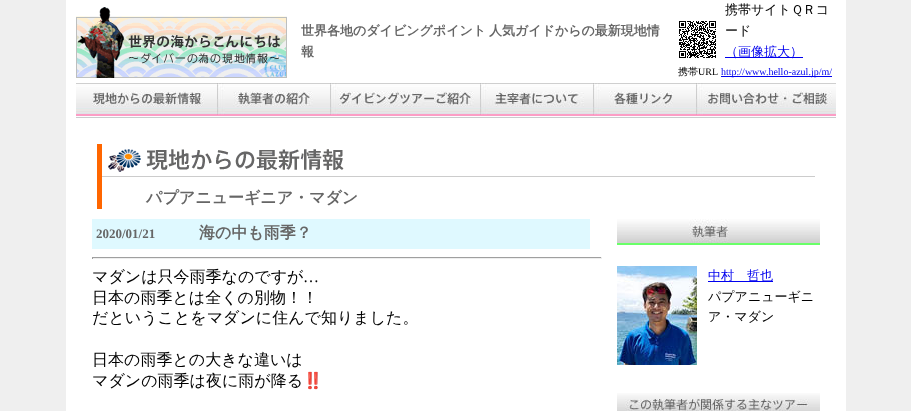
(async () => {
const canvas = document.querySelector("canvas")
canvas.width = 911
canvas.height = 411
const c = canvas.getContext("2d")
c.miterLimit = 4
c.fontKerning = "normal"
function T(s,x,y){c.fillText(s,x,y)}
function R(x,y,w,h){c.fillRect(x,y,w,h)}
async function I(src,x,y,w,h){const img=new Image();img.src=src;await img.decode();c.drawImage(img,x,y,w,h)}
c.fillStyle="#efefef"
R(0,0,911,411)
c.fillStyle="#fff"
R(66,0,780,411)
await I("1.png",76,7,211,71)
c.font="bold 13px WenQuanYi Zen Hei"
c.fillStyle="#666"
T("世界各地のダイビングポイント",301,35)
T("人気ガイドからの最新現地情",489,35)
T("報",301,56)
await I("2.png",679,21,37,37)
c.font="500 13px WenQuanYi Zen Hei"
c.fillStyle="#000"
T("携帯サイトＱＲコ",725,14)
T("ード",725,35)
c.fillStyle="#00e"
R(725,57,78,1)
T("（画像拡大）",725,56)
c.font="500 10px WenQuanYi Zen Hei"
c.fillStyle="#000"
T("携帯",678,75)
c.font="10px Liberation Serif"
T("URL",698,75)
c.fillStyle="#00e"
R(721,76,111,1)
T("http://www.hello-azul.jp/m/",721,75)
await I("3.png",76,83,141,35)
await I("4.png",217,83,113,35)
await I("5.png",330,83,150,35)
await I("6.png",480,83,113,35)
await I("7.png",593,83,103,35)
await I("8.png",696,83,140,35)
c.fillStyle="#f60"
R(97,144,5,65)
await I("9.png",108,149,236,23)
c.fillStyle="#ccc"
R(102,176,713,1)
c.font="bold 16px WenQuanYi Zen Hei"
c.fillStyle="#666"
T("パプアニューギニア・マダン",146,203)
c.fillStyle="#dff9ff"
R(92,219,498,30)
c.font="bold 13px Liberation Serif"
c.fillStyle="#666"
T("2020/01/21",96,238)
c.font="bold 16px WenQuanYi Zen Hei"
T("海の中も雨季？",199,238)
c.fillStyle="#9f9f9f"
R(92,257,510,1)
c.fillStyle="#eee"
R(601,257,1,2)
R(92,258,510,1)
c.fillStyle="#9f9f9f"
R(92,257,1,2)
c.font="500 16px WenQuanYi Zen Hei"
c.fillStyle="#000"
T("マダンは只今雨季なのですが",92,282)
c.font="16px Liberation Serif"
T("…",303,282)
c.font="500 16px WenQuanYi Zen Hei"
T("日本の雨季とは全くの別物！！",92,303)
T("だということをマダンに住んで知りました。",92,323)
T("日本の雨季との大きな違いは",92,365)
T("マダンの雨季は夜に雨が降る",92,386)
c.font="16px Noto Color Emoji"
T("‼️",303,386)
await I("10.png",617,219,203,26)
await I("11.png",617,266,80,99)
c.fillStyle="#00e"
R(708,281,65,1)
c.font="500 13px WenQuanYi Zen Hei"
T("中村　哲也",708,280)
c.fillStyle="#000"
T("パプアニューギニ",708,301)
T("ア・マダン",708,321)
await I("12.png",617,393,203,18)
})()
